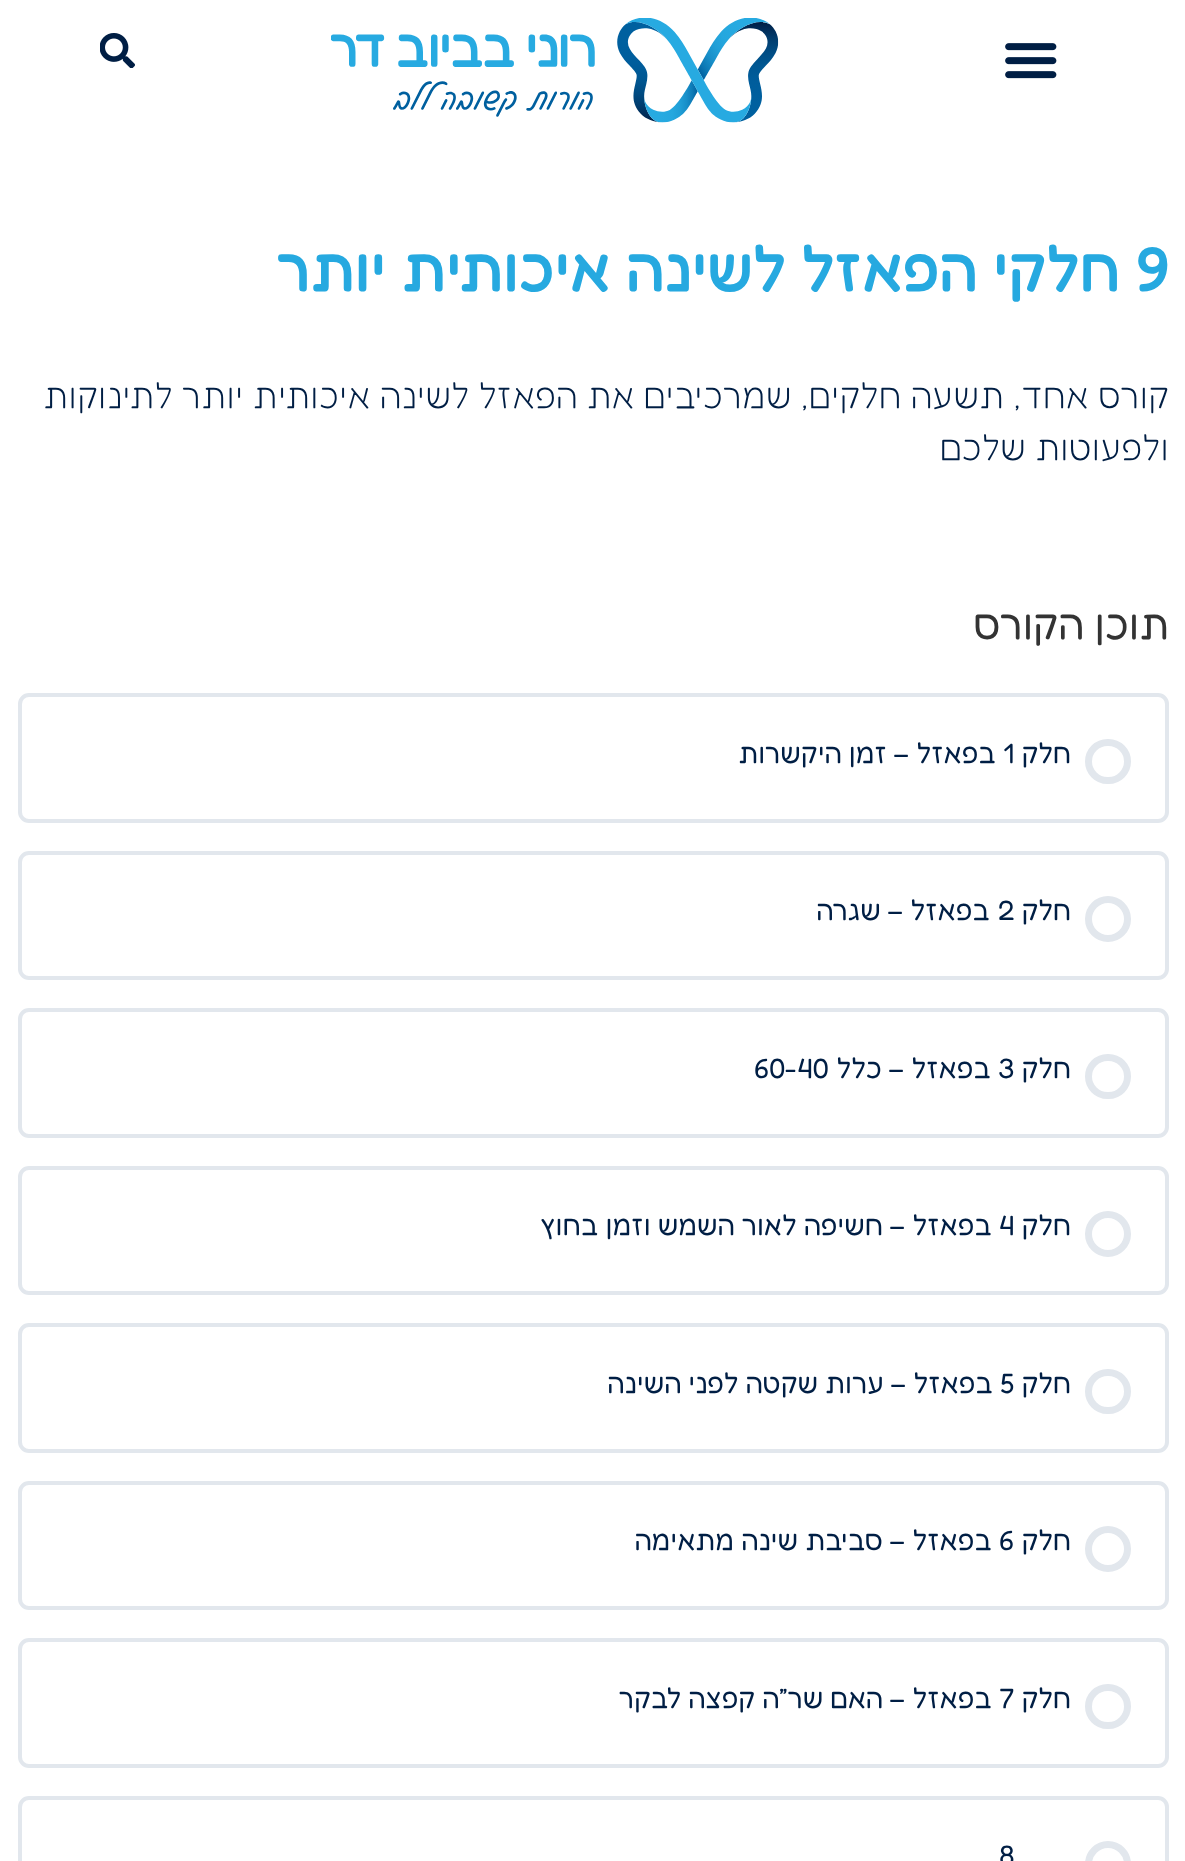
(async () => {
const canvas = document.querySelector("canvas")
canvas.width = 1185
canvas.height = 1861
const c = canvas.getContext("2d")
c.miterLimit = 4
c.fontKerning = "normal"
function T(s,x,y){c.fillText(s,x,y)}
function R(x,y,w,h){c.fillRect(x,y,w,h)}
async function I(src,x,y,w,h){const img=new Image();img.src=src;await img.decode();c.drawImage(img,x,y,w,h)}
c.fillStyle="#fff"
R(0,0,1185,1861)
await I("1.png",1005,43,52,36)
await I("2.png",331,18,448,105)
await I("3.png",100,33,35,35)
c.font="500 63px Fredoka"
c.fillStyle="#26a9e0"
T("9",1136,291)
c.direction="rtl"
T("חלקי הפאזל לשינה איכותית יותר",1120,291)
c.font="300 35px Fredoka"
c.fillStyle="#001e44"
T("קורס אחד, תשעה חלקים, שמרכיבים את הפאזל לשינה איכותית יותר לתינוקות",1169,408)
T("ולפעוטות שלכם",1169,460)
c.font="42px Fredoka"
c.fillStyle="#333"
T("תוכן הקורס",1169,639)
c.beginPath()
c.roundRect(20,695,1147,126,9)
c.strokeStyle="#e2e7ed"
c.lineWidth=4
c.stroke()
c.beginPath()
c.roundRect(1088.5,742.5,39,38,19)
c.lineWidth=7
c.stroke()
c.font="28px Fredoka"
c.fillStyle="#001e44"
T("חלק",1071,763)
c.direction="ltr"
T("1",1003,763)
c.direction="rtl"
T("בפאזל – זמן היקשרות",996,763)
c.beginPath()
c.roundRect(20,853,1147,125,9)
c.lineWidth=4
c.stroke()
c.beginPath()
c.arc(1108,919,19.5,0,7)
c.lineWidth=7
c.stroke()
T("חלק",1071,920)
c.direction="ltr"
T("2",998,920)
c.direction="rtl"
T("בפאזל – שגרה",990,920)
c.beginPath()
c.roundRect(20,1010,1147,126,9)
c.lineWidth=4
c.stroke()
c.beginPath()
c.roundRect(1088.5,1057.5,39,38,19)
c.lineWidth=7
c.stroke()
T("חלק",1071,1078)
c.direction="ltr"
T("3",998,1078)
c.direction="rtl"
T("בפאזל – כלל",991,1078)
c.direction="ltr"
T("60-40",754,1078)
c.beginPath()
c.roundRect(20,1168,1147,125,9)
c.lineWidth=4
c.stroke()
c.beginPath()
c.arc(1108,1234,19.5,0,7)
c.lineWidth=7
c.stroke()
c.direction="rtl"
T("חלק",1071,1235)
c.direction="ltr"
T("4",999,1235)
c.direction="rtl"
T("בפאזל – חשיפה לאור השמש וזמן בחוץ",992,1235)
c.beginPath()
c.roundRect(20,1325,1147,126,9)
c.lineWidth=4
c.stroke()
c.beginPath()
c.roundRect(1088.5,1372.5,39,38,19)
c.lineWidth=7
c.stroke()
T("חלק",1071,1393)
c.direction="ltr"
T("5",1000,1393)
c.direction="rtl"
T("בפאזל – ערות שקטה לפני השינה",993,1393)
c.beginPath()
c.roundRect(20,1483,1147,125,9)
c.lineWidth=4
c.stroke()
c.beginPath()
c.arc(1108,1549,19.5,0,7)
c.lineWidth=7
c.stroke()
T("חלק",1071,1550)
c.direction="ltr"
T("6",999,1550)
c.direction="rtl"
T("בפאזל – סביבת שינה מתאימה",992,1550)
c.beginPath()
c.roundRect(20,1640,1147,126,9)
c.lineWidth=4
c.stroke()
c.beginPath()
c.roundRect(1088.5,1687.5,39,38,19)
c.lineWidth=7
c.stroke()
T("חלק",1071,1708)
c.direction="ltr"
T("7",999,1708)
c.direction="rtl"
T("בפאזל – האם שר”ה קפצה לבקר",992,1708)
c.beginPath()
c.roundRect(20,1798,1147,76,9)
c.lineWidth=4
c.stroke()
c.beginPath()
c.arc(1108,1864,19.5,0,7)
c.lineWidth=7
c.stroke()
c.direction="ltr"
T("8",999,1865)
})()
